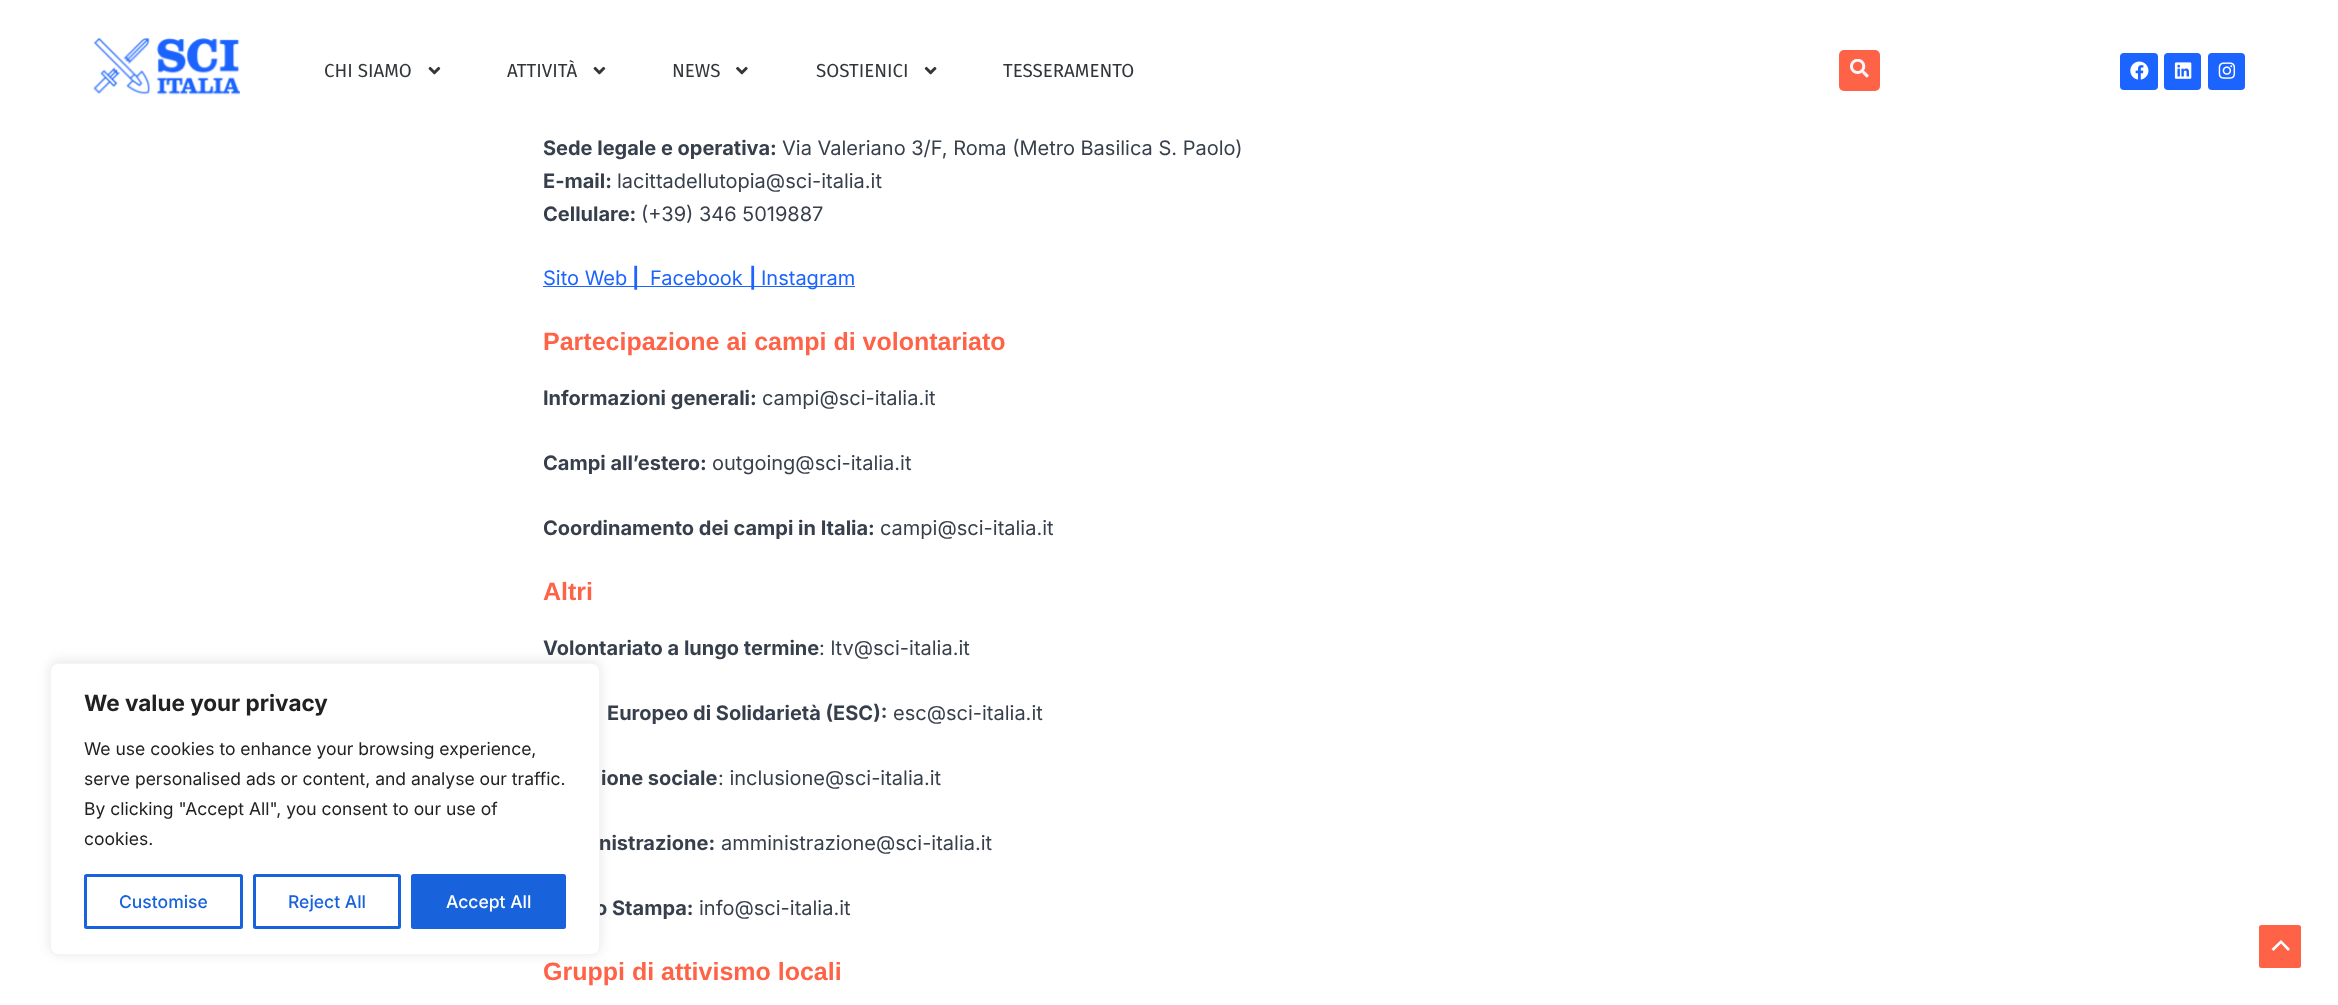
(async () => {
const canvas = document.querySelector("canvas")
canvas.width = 2338
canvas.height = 1005
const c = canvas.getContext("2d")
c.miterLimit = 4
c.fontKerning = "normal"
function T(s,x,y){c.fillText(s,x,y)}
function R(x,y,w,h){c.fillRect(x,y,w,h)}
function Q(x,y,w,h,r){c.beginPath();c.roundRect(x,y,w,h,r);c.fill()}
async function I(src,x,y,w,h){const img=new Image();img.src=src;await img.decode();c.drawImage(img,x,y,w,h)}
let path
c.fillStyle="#fff"
R(0,0,2338,1005)
c.fillStyle="#acabab4d"
c.filter="blur(6px)"
c.beginPath()
c.roundRect(50,661,550,293,8)
c.fill()
c.filter="none"
c.font="bold 20px Inter"
c.fillStyle="#363f4b"
T("o Stampa:",595,915)
c.fillStyle="#fff"
c.beginPath()
c.roundRect(50.5,663.5,549,291,7.5)
c.fill()
c.strokeStyle="#f4f4f4"
c.stroke()
c.font="bold 22.5px Inter"
c.fillStyle="#212121"
T("We value your privacy",84,711)
c.font="17.5px Inter"
T("We use cookies to enhance your browsing experience,",84,755)
T("serve personalised ads or content, and analyse our traffic.",84,785)
T("By clicking \"Accept All\", you consent to our use of",84,815)
T("cookies.",84,845)
c.beginPath()
c.roundRect(85.5,875.5,156,52,1)
c.strokeStyle="#1863dc"
c.lineWidth=3
c.stroke()
c.font="500 17.5px Inter"
c.fillStyle="#1863dc"
T("Customise",119,908)
c.beginPath()
c.roundRect(254.5,875.5,145,52,1)
c.stroke()
T("Reject All",288,908)
c.beginPath()
c.roundRect(412.5,875.5,152,52,1)
c.fill()
c.stroke()
c.fillStyle="#fff"
T("Accept All",446,908)
await I("1.png",93,37,147,58)
c.font="18.75px Fira Sans"
c.fillStyle="#333639"
T("CHI SIAMO",324,77)
await I("2.png",428,66,13,9)
T("ATTIVITÀ",507,77)
await I("2.png",593,66,13,9)
T("NEWS",672,77)
await I("3.png",736,66,12,9)
T("SOSTIENICI",816,77)
await I("4.png",924,66,13,9)
T("TESSERAMENTO",1003,77)
c.fillStyle="#ff6347"
Q(1839,50,41,41,5)
await I("5.png",1850,59,19,19)
c.fillStyle="#1c64ff"
Q(2120,53,38,37,4)
await I("6.png",2130,61,19,19)
Q(2164,53,37,37,4)
await I("7.png",2174,62,18,17)
Q(2208,53,37,37,4)
await I("8.png",2218,62,18,17)
c.font="bold 20px Inter"
c.fillStyle="#363f4b"
T("Sede legale e operativa:",543,155)
c.font="20px Inter"
T("Via Valeriano 3/F, Roma (Metro Basilica S. Paolo)",782,155)
c.font="bold 20px Inter"
T("E-mail:",543,188)
c.font="20px Inter"
T("lacittadellutopia@sci-italia.it",617,188)
c.font="bold 20px Inter"
T("Cellulare:",543,221)
c.font="20px Inter"
T("(+39) 346 5019887",641,221)
c.fillStyle="#1c64ff"
T("Sito Web",543,285)
R(543,286,312,1)
c.font="bold 20px Inter"
T("|",632,285)
c.font="20px Inter"
T("Facebook",650,285)
c.font="bold 20px Inter"
T("|",749,285)
c.font="20px Inter"
T("Instagram",761,285)
c.font="bold 25px Liberation Sans"
c.fillStyle="#ff6347"
T("Partecipazione ai campi di volontariato",543,350)
c.font="bold 20px Inter"
c.fillStyle="#363f4b"
T("Informazioni generali:",543,405)
c.font="20px Inter"
T("campi@sci-italia.it",762,405)
c.font="bold 20px Inter"
T("Campi all’estero:",543,470)
c.font="20px Inter"
T("outgoing@sci-italia.it",712,470)
c.font="bold 20px Inter"
T("Coordinamento dei campi in Italia:",543,535)
c.font="20px Inter"
T("campi@sci-italia.it",880,535)
c.font="bold 25px Liberation Sans"
c.fillStyle="#ff6347"
T("Altri",543,600)
c.font="bold 20px Inter"
c.fillStyle="#363f4b"
T("Volontariato a lungo termine",543,655)
c.font="20px Inter"
T(": ltv@sci-italia.it",819,655)
c.font="bold 20px Inter"
T("Europeo di Solidarietà (ESC):",607,720)
c.font="20px Inter"
T("esc@sci-italia.it",893,720)
c.font="bold 20px Inter"
T("ione sociale",601,785)
c.font="20px Inter"
T(": inclusione@sci-italia.it",718,785)
c.font="bold 20px Inter"
T("nistrazione:",599,850)
c.font="20px Inter"
T("amministrazione@sci-italia.it",721,850)
T("info@sci-italia.it",699,915)
c.font="bold 25px Liberation Sans"
c.fillStyle="#ff6347"
T("Gruppi di attivismo locali",543,980)
Q(2259,925,42,43,2.5)
c.fillStyle="#fff"
path = new Path2D("M2290 949l-9-9l-9.5 9l2 2l7.5-7.5l7 7.5z")
c.fill(path)
})()
